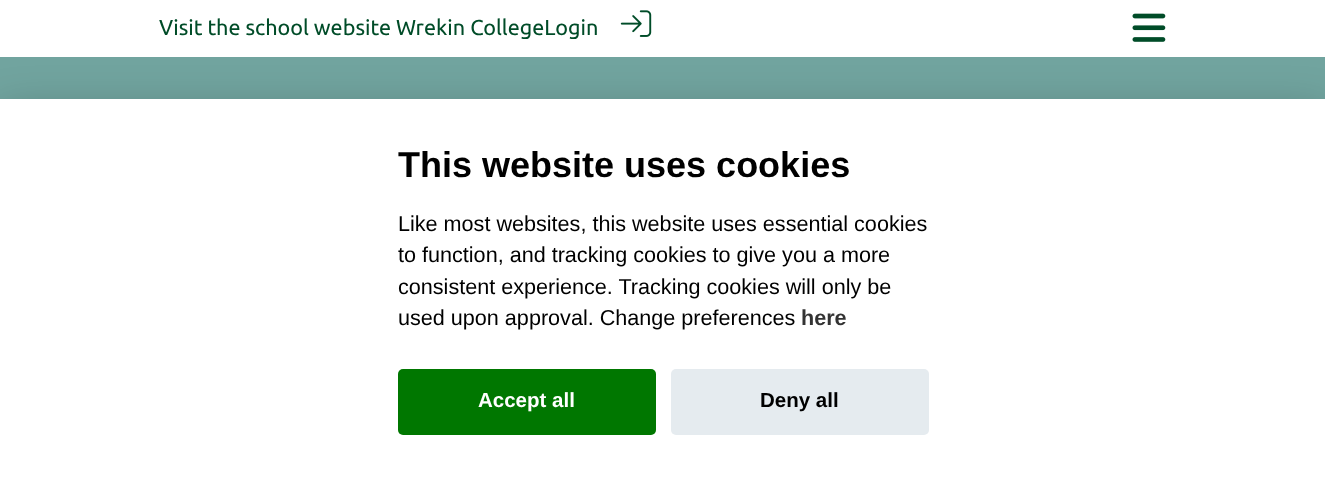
(async () => {
const canvas = document.querySelector("canvas")
canvas.width = 1325
canvas.height = 492
const c = canvas.getContext("2d")
c.miterLimit = 4
c.fontKerning = "normal"
function T(s,x,y){c.fillText(s,x,y)}
function R(x,y,w,h){c.fillRect(x,y,w,h)}
function Q(x,y,w,h,r){c.beginPath();c.roundRect(x,y,w,h,r);c.fill()}
async function I(src,x,y,w,h){const img=new Image();img.src=src;await img.decode();c.drawImage(img,x,y,w,h)}
c.fillStyle="#71a49f"
R(0,0,1325,492)
c.fillStyle="#fff"
R(0,0,1325,57)
c.font="21.6px Ubuntu"
c.fillStyle="#004c28"
T("Visit the school website Wrekin CollegeLogin",159,35)
await I("1.png",620,10,32,27)
await I("2.png",1132,13,34,29)
c.fillStyle="#02020347"
c.filter="blur(22.5px)"
c.beginPath()
c.rect(0,114,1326,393)
c.fill()
c.filter="none"
c.fillStyle="#fff"
R(0,99,1325,393)
c.font="bold 36px Liberation Sans"
c.fillStyle="#000"
T("This website uses cookies",398,177)
c.font="21.6px Liberation Sans"
T("Like most websites, this website uses essential cookies",398,231)
T("to function, and tracking cookies to give you a more",398,262)
T("consistent experience. Tracking cookies will only be",398,294)
T("used upon approval. Change preferences",398,325)
c.font="bold 21.6px Liberation Sans"
c.fillStyle="#333"
T("here",801,325)
c.fillStyle="#070"
Q(398,369,258,66,5)
c.font="bold 20.5px Liberation Sans"
c.fillStyle="#fff"
T("Accept all",478,407)
c.fillStyle="#e5ebef"
Q(671,369,258,66,5)
c.fillStyle="#000"
T("Deny all",760,407)
})()
